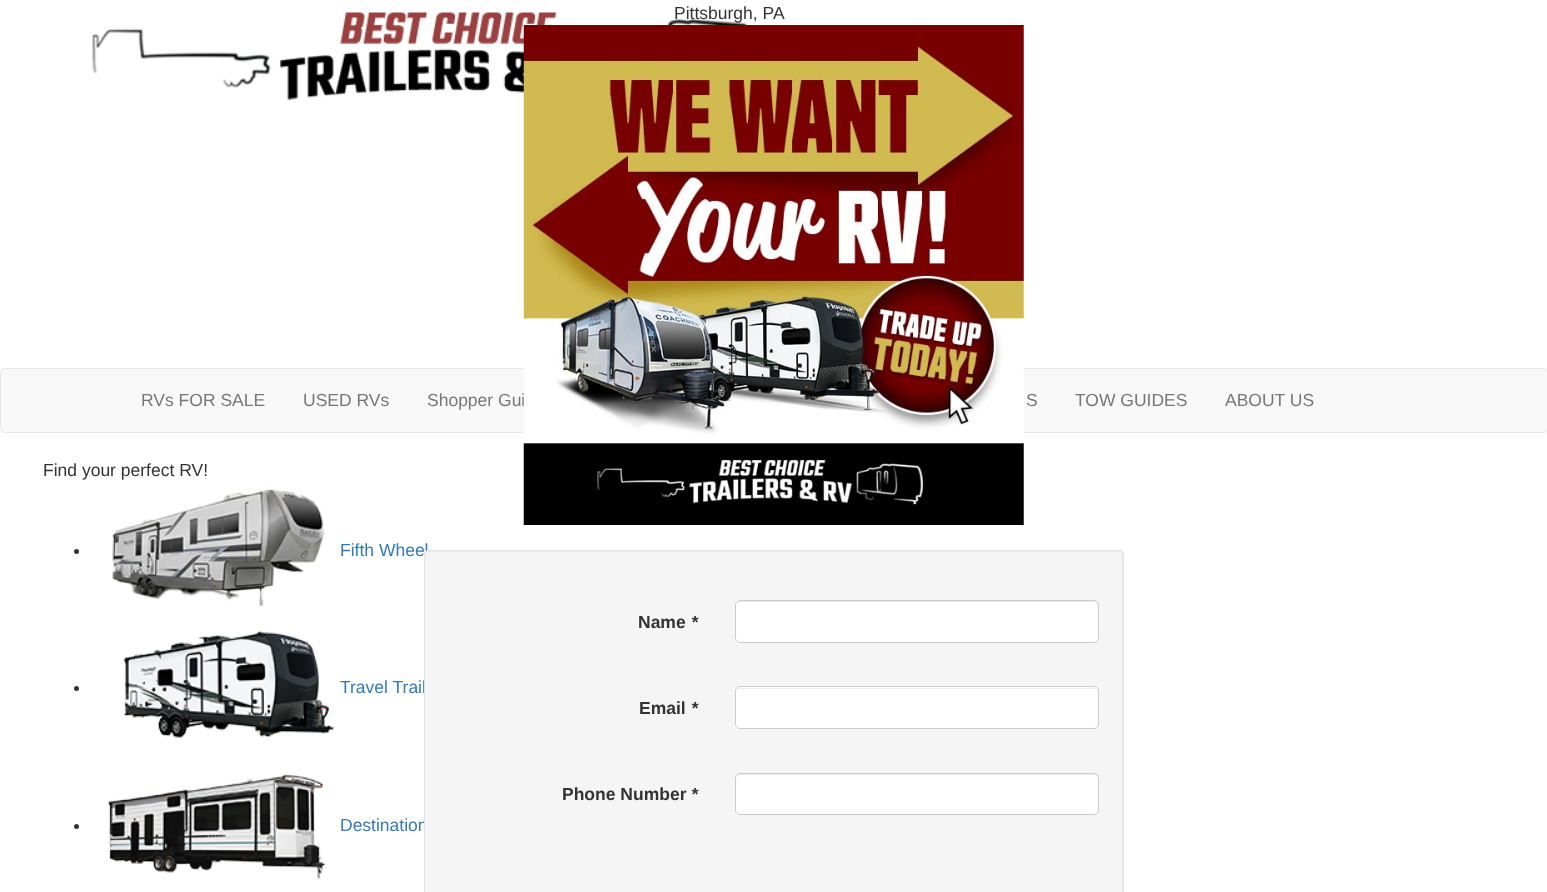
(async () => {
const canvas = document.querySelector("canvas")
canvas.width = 1547
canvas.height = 892
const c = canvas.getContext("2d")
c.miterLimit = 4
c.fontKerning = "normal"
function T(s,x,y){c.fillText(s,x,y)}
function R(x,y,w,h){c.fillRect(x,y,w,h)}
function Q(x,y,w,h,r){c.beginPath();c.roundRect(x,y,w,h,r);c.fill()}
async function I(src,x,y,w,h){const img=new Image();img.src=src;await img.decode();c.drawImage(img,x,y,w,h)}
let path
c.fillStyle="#fff"
R(0,0,1547,892)
await I("1.png",92,12,656,89)
c.font="17.5px Liberation Sans"
c.fillStyle="#333"
T("Pittsburgh, PA",674,19)
c.fillStyle="#f8f8f8"
c.beginPath()
c.roundRect(.5,368.5,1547,64,4.5)
c.fill()
c.strokeStyle="#e7e7e7"
c.stroke()
c.fillStyle="#777"
T("RVs FOR SALE",141,406)
T("USED RVs",303,406)
T("Shopper Gui",427,406)
T("S",1026,406)
T("TOW GUIDES",1075,406)
T("ABOUT US",1225,406)
c.fillStyle="#333"
T("Find your perfect RV!",43,476)
c.beginPath()
c.arc(76.5,551.5,2.5,0,7)
c.fill()
await I("2.png",112,489,213,118)
c.fillStyle="#337ab7"
T("Fifth Wheel",340,556)
c.fillStyle="#333"
c.beginPath()
c.arc(76.5,688.5,2.5,0,7)
c.fill()
await I("3.png",123,631,211,107)
c.fillStyle="#337ab7"
T("Travel Trail",340,693)
c.fillStyle="#333"
c.beginPath()
c.arc(76.5,826.5,2.5,0,7)
c.fill()
await I("4.png",108,774,218,105)
c.fillStyle="#337ab7"
T("Destination",340,831)
await I("5.png",523,25,501,500)
c.fillStyle="#f5f5f5"
path = new Path2D("M429 550h690c3 0 5 2 5 5v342h-700v-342c0-3 2-5 5-5z")
c.fill(path)
c.fillStyle="#e9e9e9"
path = new Path2D("M429 552h690c2 0 3 2 3 4v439v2c0-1 1-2 1-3v-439c0-2-2-4-4-4h-690c-2 0-4 2-4 4v1c0-2 2-4 4-4z")
c.fill(path)
c.beginPath()
c.roundRect(424.5,550.5,699,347,4.5)
c.strokeStyle="#e3e3e3"
c.stroke()
c.font="bold 17.5px Liberation Sans"
c.fillStyle="#333"
T("Name",638,628)
c.font="italic bold 17.5px Liberation Sans"
T("*",691,628)
c.fillStyle="#fff"
Q(735,600,364,43,5)
c.fillStyle="#ececec"
path = new Path2D("M740 602h354c2 0 4 2 4 4c0-3-1-5-4-5h-355l-2 2l-1 3c0-2 2-4 4-4z")
c.fill(path)
c.beginPath()
c.roundRect(735.5,600.5,363,42,4.5)
c.strokeStyle="#ccc"
c.stroke()
c.font="bold 17.5px Liberation Sans"
c.fillStyle="#333"
T("Email",639,714)
c.font="italic bold 17.5px Liberation Sans"
T("*",691,714)
c.fillStyle="#fff"
Q(735,686,364,43,5)
c.fillStyle="#ececec"
path = new Path2D("M740 689h354c2 0 4 1 4 3c0-2-2-4-4-4h-354c-2 0-4 2-4 4c0-2 2-3 4-3z")
c.fill(path)
c.beginPath()
c.roundRect(735.5,686.5,363,42,4.5)
c.stroke()
c.font="bold 17.5px Liberation Sans"
c.fillStyle="#333"
T("Phone Number",562,800)
c.font="italic bold 17.5px Liberation Sans"
T("*",691,800)
c.fillStyle="#fff"
Q(735,773,364,42,5)
c.fillStyle="#ececec"
path = new Path2D("M740 775h354c2 0 4 2 4 4c0-3-1-5-4-5h-355l-2 2l-1 3c0-2 2-4 4-4z")
c.fill(path)
c.beginPath()
c.roundRect(735.5,773.5,363,41,4.5)
c.stroke()
})()
